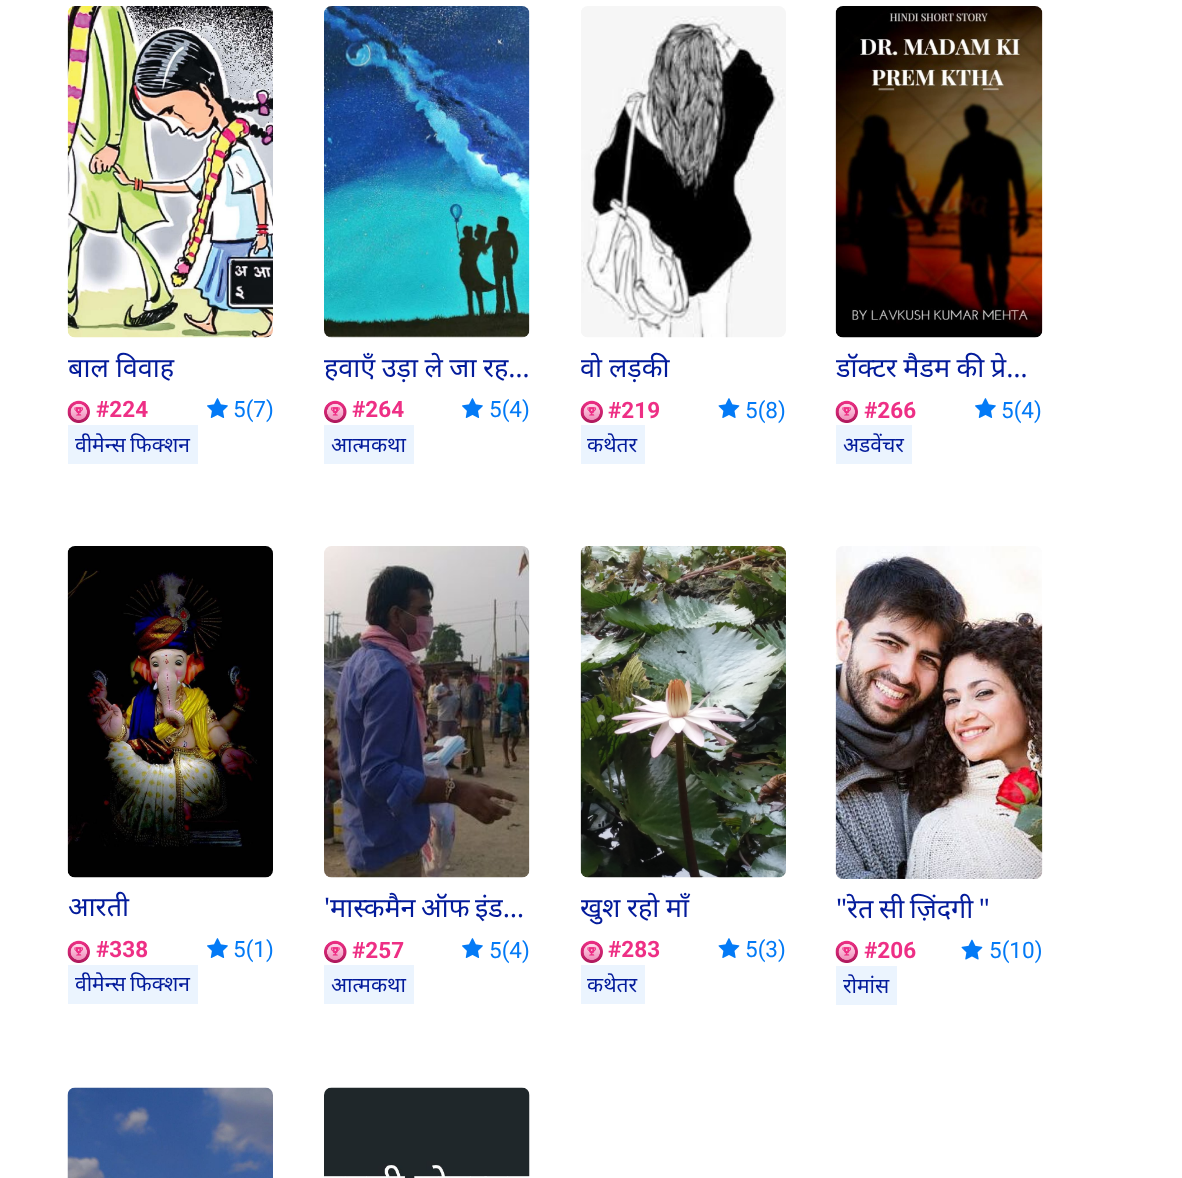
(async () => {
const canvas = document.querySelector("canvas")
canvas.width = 1182
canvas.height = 1178
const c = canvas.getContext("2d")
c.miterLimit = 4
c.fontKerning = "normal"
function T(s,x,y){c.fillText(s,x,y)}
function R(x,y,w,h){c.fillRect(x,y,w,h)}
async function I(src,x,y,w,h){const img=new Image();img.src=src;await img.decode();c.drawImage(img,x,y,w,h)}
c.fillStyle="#fff"
R(0,0,1182,1178)
await I("1.png",67,6,206,332)
c.save()
c.beginPath()
c.rect(68,350,205,36)
c.clip()
c.font="27px Noto Sans"
c.fillStyle="#031b9b"
T("बाल विवाह",68,377)
c.restore()
await I("2.png",67,400,23,23)
c.font="bold 22.5px Roboto"
c.fillStyle="#ee2f85"
T("#224",96,417)
await I("3.png",207,398,21,20)
c.font="22.5px Roboto"
c.fillStyle="#037af6"
T("5(7)",233,417)
c.fillStyle="#ebf4fe"
R(68,425,130,39)
c.wordSpacing="-1px"
c.font="21px Noto Sans"
c.fillStyle="#031b9b"
T("वीमेन्स फिक्शन",75,452)
await I("4.png",324,6,206,332)
c.wordSpacing="-0.5px"
c.font="27px Noto Sans"
T("हवाएँ उड़ा ले जा रह…",324,377)
await I("5.png",324,400,23,23)
c.wordSpacing="0px"
c.font="bold 22.5px Roboto"
c.fillStyle="#ee2f85"
T("#264",352,417)
await I("3.png",462,398,21,20)
c.font="22.5px Roboto"
c.fillStyle="#037af6"
T("5(4)",489,417)
c.fillStyle="#ebf4fe"
R(324,425,90,39)
c.font="21px Noto Sans"
c.fillStyle="#031b9b"
T("आत्मकथा",331,452)
await I("6.png",581,6,205,332)
c.save()
c.beginPath()
c.rect(581,350,205,36)
c.clip()
c.font="27px Noto Sans"
T("वो लड़की",580,377)
c.restore()
await I("2.png",580,400,23,23)
c.font="bold 22.5px Roboto"
c.fillStyle="#ee2f85"
T("#219",608,418)
await I("7.png",718,398,22,20)
c.font="22.5px Roboto"
c.fillStyle="#037af6"
T("5(8)",745,418)
c.fillStyle="#ebf4fe"
R(581,425,64,39)
c.font="21px Noto Sans"
c.fillStyle="#031b9b"
T("कथेतर",587,452)
await I("8.png",835,6,208,332)
c.save()
c.beginPath()
c.rect(836,350,207,36)
c.clip()
c.wordSpacing="-0.5px"
c.font="27px Noto Sans"
T("डॉक्टर मैडम की प्रे…",836,377)
c.restore()
await I("2.png",835,400,23,23)
c.font="bold 22.5px Roboto"
c.fillStyle="#ee2f85"
T("#266",864,418)
await I("3.png",975,398,21,20)
c.font="22.5px Roboto"
c.fillStyle="#037af6"
T("5(4)",1001,418)
c.fillStyle="#ebf4fe"
R(836,425,76,39)
c.font="21px Noto Sans"
c.fillStyle="#031b9b"
T("अडवेंचर",843,452)
await I("9.png",67,546,206,332)
c.font="27px Noto Sans"
T("आरती",68,916)
await I("2.png",67,940,23,23)
c.font="bold 22.5px Roboto"
c.fillStyle="#ee2f85"
T("#338",96,957)
await I("3.png",207,938,21,20)
c.font="22.5px Roboto"
c.fillStyle="#037af6"
T("5(1)",233,957)
c.fillStyle="#ebf4fe"
R(68,965,130,39)
c.wordSpacing="-1px"
c.font="21px Noto Sans"
c.fillStyle="#031b9b"
T("वीमेन्स फिक्शन",75,991)
await I("10.png",324,546,206,332)
c.wordSpacing="-1.5px"
c.font="27px Noto Sans"
T("'मास्कमैन ऑफ इंड…",324,917)
await I("5.png",324,940,23,23)
c.wordSpacing="0px"
c.font="bold 22.5px Roboto"
c.fillStyle="#ee2f85"
T("#257",352,958)
await I("3.png",462,938,21,20)
c.font="22.5px Roboto"
c.fillStyle="#037af6"
T("5(4)",489,958)
c.fillStyle="#ebf4fe"
R(324,965,90,39)
c.font="21px Noto Sans"
c.fillStyle="#031b9b"
T("आत्मकथा",331,992)
await I("11.png",580,546,206,332)
c.save()
c.beginPath()
c.rect(581,890,205,36)
c.clip()
c.wordSpacing="-0.5px"
c.font="27px Noto Sans"
T("खुश रहो माँ",580,917)
c.restore()
await I("2.png",580,940,23,23)
c.font="bold 22.5px Roboto"
c.fillStyle="#ee2f85"
T("#283",608,957)
await I("7.png",718,938,22,20)
c.font="22.5px Roboto"
c.fillStyle="#037af6"
T("5(3)",745,957)
c.fillStyle="#ebf4fe"
R(581,965,64,39)
c.font="21px Noto Sans"
c.fillStyle="#031b9b"
T("कथेतर",587,992)
await I("12.png",835,546,208,333)
c.wordSpacing="-1.5px"
c.font="27px Noto Sans"
T("\"रेत सी ज़िंदगी \"",836,918)
await I("2.png",835,940,23,23)
c.wordSpacing="0px"
c.font="bold 22.5px Roboto"
c.fillStyle="#ee2f85"
T("#206",864,958)
await I("13.png",961,939,22,21)
c.font="22.5px Roboto"
c.fillStyle="#037af6"
T("5(10)",989,958)
c.fillStyle="#ebf4fe"
R(836,966,61,39)
c.font="21px Noto Sans"
c.fillStyle="#031b9b"
T("रोमांस",843,993)
await I("14.png",67,1087,206,91)
await I("15.png",324,1087,206,91)
})()
